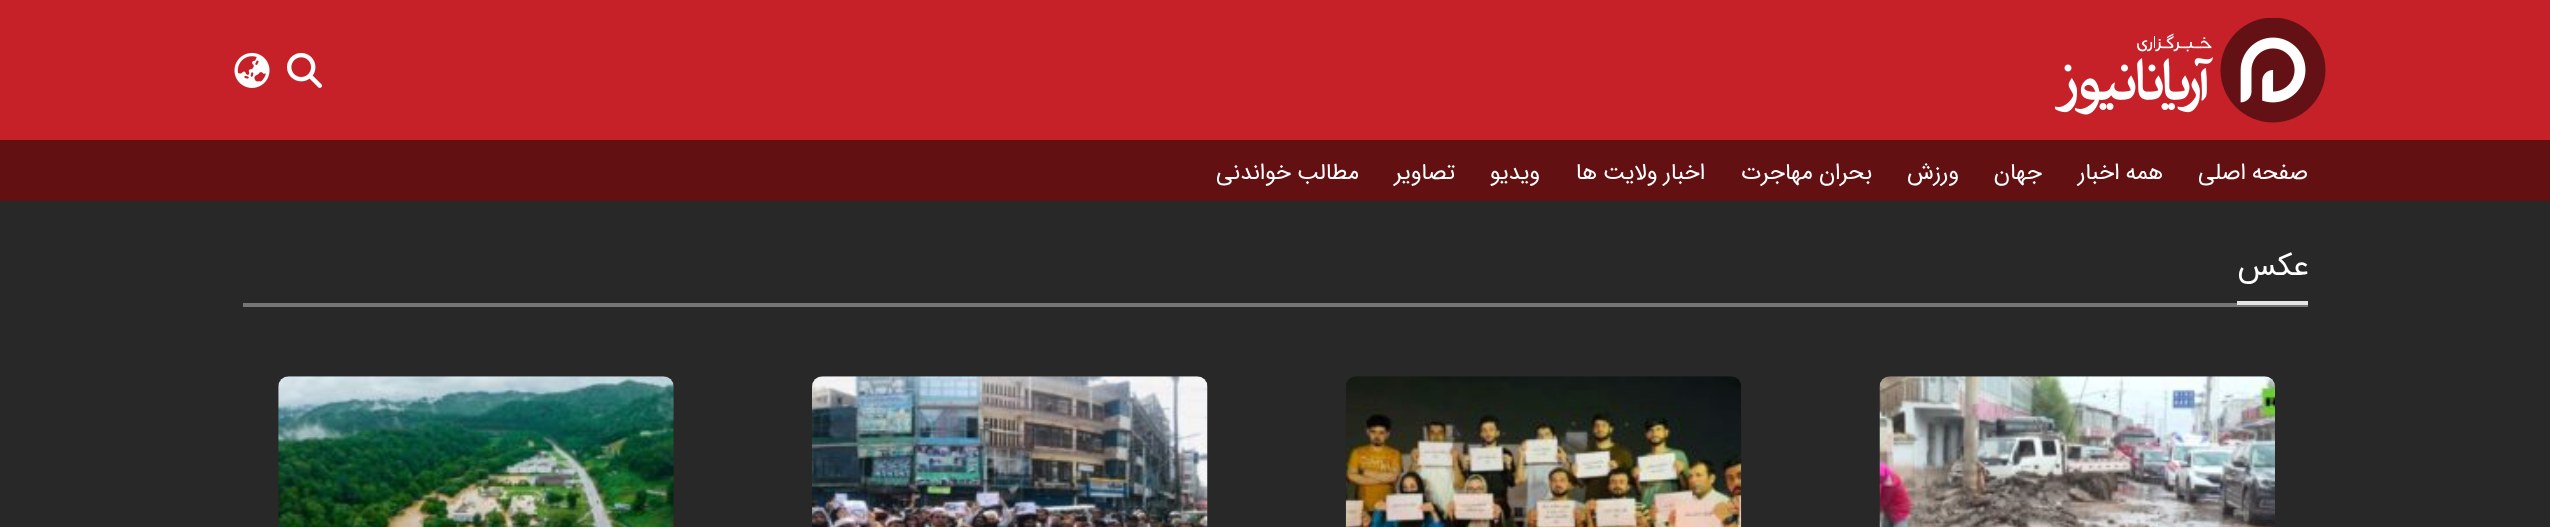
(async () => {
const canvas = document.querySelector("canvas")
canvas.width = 2550
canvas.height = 527
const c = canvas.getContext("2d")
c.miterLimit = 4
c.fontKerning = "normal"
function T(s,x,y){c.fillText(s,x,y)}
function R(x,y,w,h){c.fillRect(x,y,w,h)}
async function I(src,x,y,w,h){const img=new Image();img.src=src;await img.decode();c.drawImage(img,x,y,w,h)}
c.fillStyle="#282828"
R(0,0,2550,527)
c.fillStyle="#c62128"
R(0,0,2550,140)
await I("1.png",2055,18,271,105)
await I("2.png",287,52,35,36)
await I("3.png",234,52,36,36)
c.fillStyle="#631013"
R(0,140,2550,61)
c.letterSpacing="0.2px"
c.wordSpacing="-1px"
c.direction="rtl"
c.font="22.75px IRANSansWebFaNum"
c.fillStyle="#fff"
T("صفحه اصلی",2308,179)
T("همه اخبار",2163,179)
c.wordSpacing="0px"
T("جهان",2042,179)
T("ورزش",1959,179)
c.wordSpacing="-1px"
T("بحران مهاجرت",1872,179)
T("اخبار ولایت ها",1705,179)
c.wordSpacing="0px"
T("ویدیو",1540,179)
T("تصاویر",1455,179)
c.wordSpacing="-1px"
T("مطالب خواندنی",1359,179)
c.fillStyle="#767676"
R(243,303,2065,4)
c.fillStyle="#e5e5e5"
R(2237,301,71,4)
c.wordSpacing="0px"
c.font="31.5px IRANSansWebFaNum"
c.fillStyle="#fff"
T("عکس",2309,275)
await I("4.png",1879,376,396,151)
await I("5.png",1345,376,397,151)
await I("6.png",812,376,396,151)
await I("7.png",278,376,396,151)
})()
